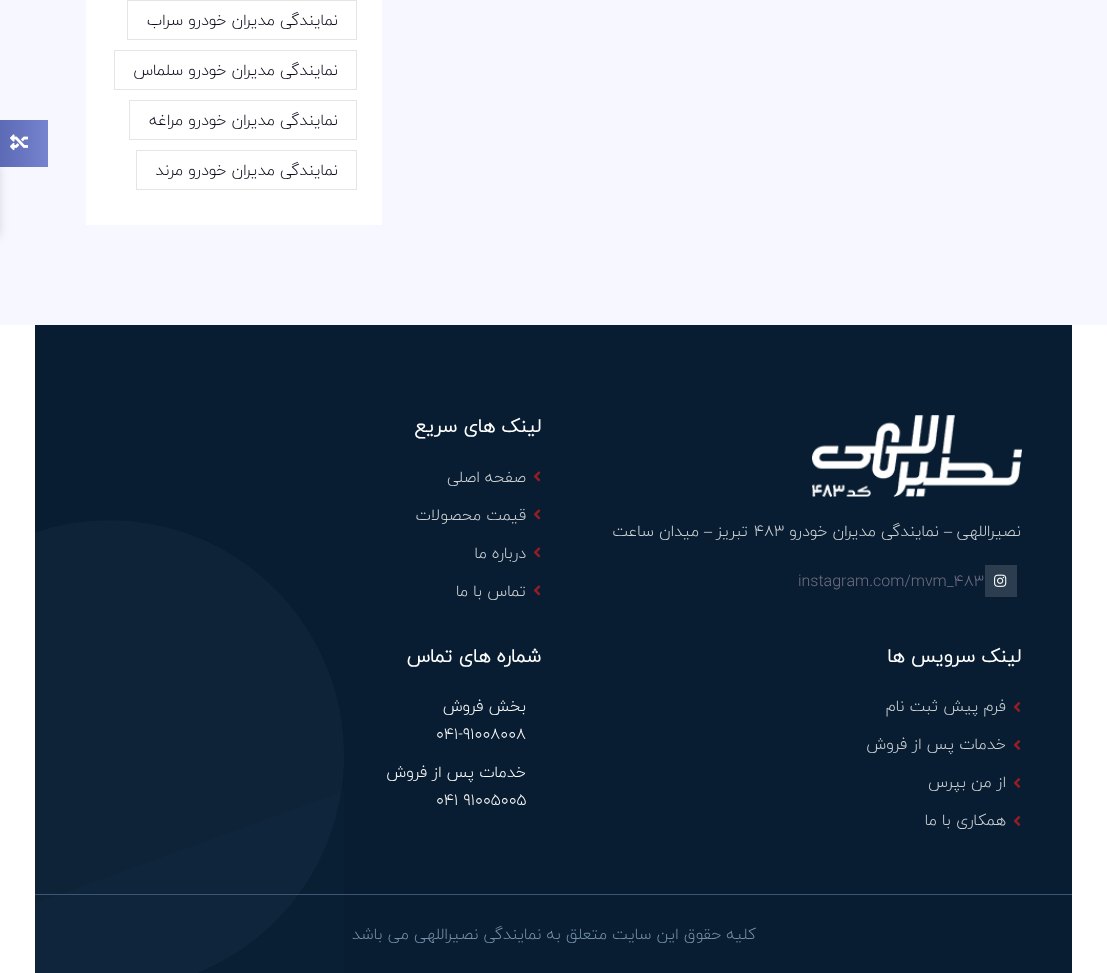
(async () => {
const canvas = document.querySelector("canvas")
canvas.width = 1107
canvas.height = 973
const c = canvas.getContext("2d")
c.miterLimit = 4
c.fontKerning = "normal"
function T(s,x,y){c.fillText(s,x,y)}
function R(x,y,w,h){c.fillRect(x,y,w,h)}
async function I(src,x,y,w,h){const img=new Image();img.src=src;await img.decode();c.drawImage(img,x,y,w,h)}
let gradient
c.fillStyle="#fff"
R(0,0,1107,973)
c.fillStyle="#f7f7ff"
R(0,0,1107,325)
c.fillStyle="#fff"
R(86,0,296,225)
c.strokeStyle="#e5e5e5"
c.strokeRect(127.5,.5,229,39)
c.direction="rtl"
c.font="300 16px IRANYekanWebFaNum"
c.fillStyle="#0f0d1d"
T("نمایندگی مدیران خودرو سراب",338,25)
c.strokeRect(114.5,50.5,242,39)
T("نمایندگی مدیران خودرو سلماس",338,75)
c.strokeRect(129.5,100.5,227,39)
T("نمایندگی مدیران خودرو مراغه",338,125)
c.strokeRect(136.5,150.5,220,39)
T("نمایندگی مدیران خودرو مرند",338,175)
c.fillStyle="#00000029"
c.filter="blur(5px)"
c.beginPath()
c.rect(-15,166,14,70)
c.fill()
c.filter="none"
gradient = c.createLinearGradient(-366,144,48,144)
gradient.addColorStop(.7,"#32408f")
gradient.addColorStop(1,"#7684cf")
c.fillStyle = gradient
R(0,120,48,47)
await I("1.png",10,134,18,17)
c.fillStyle="#081d31"
R(35,325,1037,648)
await I("2.png",35,520,309,453)
await I("3.png",812,415,210,82)
c.fillStyle="#ced2d6"
T("نصیراللهی",1021,536)
c.font="16px Liberation Serif"
T("–",952,536)
c.font="300 16px IRANYekanWebFaNum"
T("نمایندگی مدیران خودرو",939,536)
c.direction="ltr"
T("483",754,536)
c.direction="rtl"
T("تبریز",748,536)
c.font="16px Liberation Serif"
T("–",712,536)
c.font="300 16px IRANYekanWebFaNum"
T("میدان ساعت",699,536)
c.fillStyle="#2b3d4e"
R(985,565,32,32)
await I("4.png",994,574,13,13)
c.direction="ltr"
c.fillStyle="#726f84"
T("instagram.com/mvm_483",798,586)
c.direction="rtl"
c.font="bold 19px IRANYekanWebFaNum"
c.fillStyle="#fff"
T("لینک های سریع",541,432)
await I("5.png",533,471,8,11)
c.font="300 16px IRANYekanWebFaNum"
c.fillStyle="#ced2d6"
T("صفحه اصلی",526,482)
await I("5.png",533,509,8,11)
T("قیمت محصولات",526,520)
await I("5.png",533,547,8,11)
T("درباره ما",526,558)
await I("5.png",533,585,8,11)
T("تماس با ما",526,596)
c.font="bold 19px IRANYekanWebFaNum"
c.fillStyle="#fff"
T("لینک سرویس ها",1021,662)
await I("6.png",1013,702,8,10)
c.font="300 16px IRANYekanWebFaNum"
c.fillStyle="#ced2d6"
T("فرم پیش ثبت نام",1006,711)
await I("6.png",1013,740,8,10)
T("خدمات پس از فروش",1006,749)
await I("6.png",1013,778,8,10)
T("از من بپرس",1006,787)
await I("6.png",1013,816,8,10)
T("همکاری با ما",1006,825)
c.font="bold 19px IRANYekanWebFaNum"
c.fillStyle="#fff"
T("شماره های تماس",541,662)
c.font="300 16px IRANYekanWebFaNum"
T("بخش فروش",526,711)
c.direction="ltr"
T("041-91008008",436,739)
c.direction="rtl"
T("خدمات پس از فروش",526,777)
c.direction="ltr"
T("041 91005005",436,805)
c.fillStyle="#3b5773"
R(35,894,1037,1)
c.direction="rtl"
c.fillStyle="#738ea8"
T("کلیه حقوق این سایت متعلق به نمایندگی نصیراللهی می باشد",756,939)
})()
